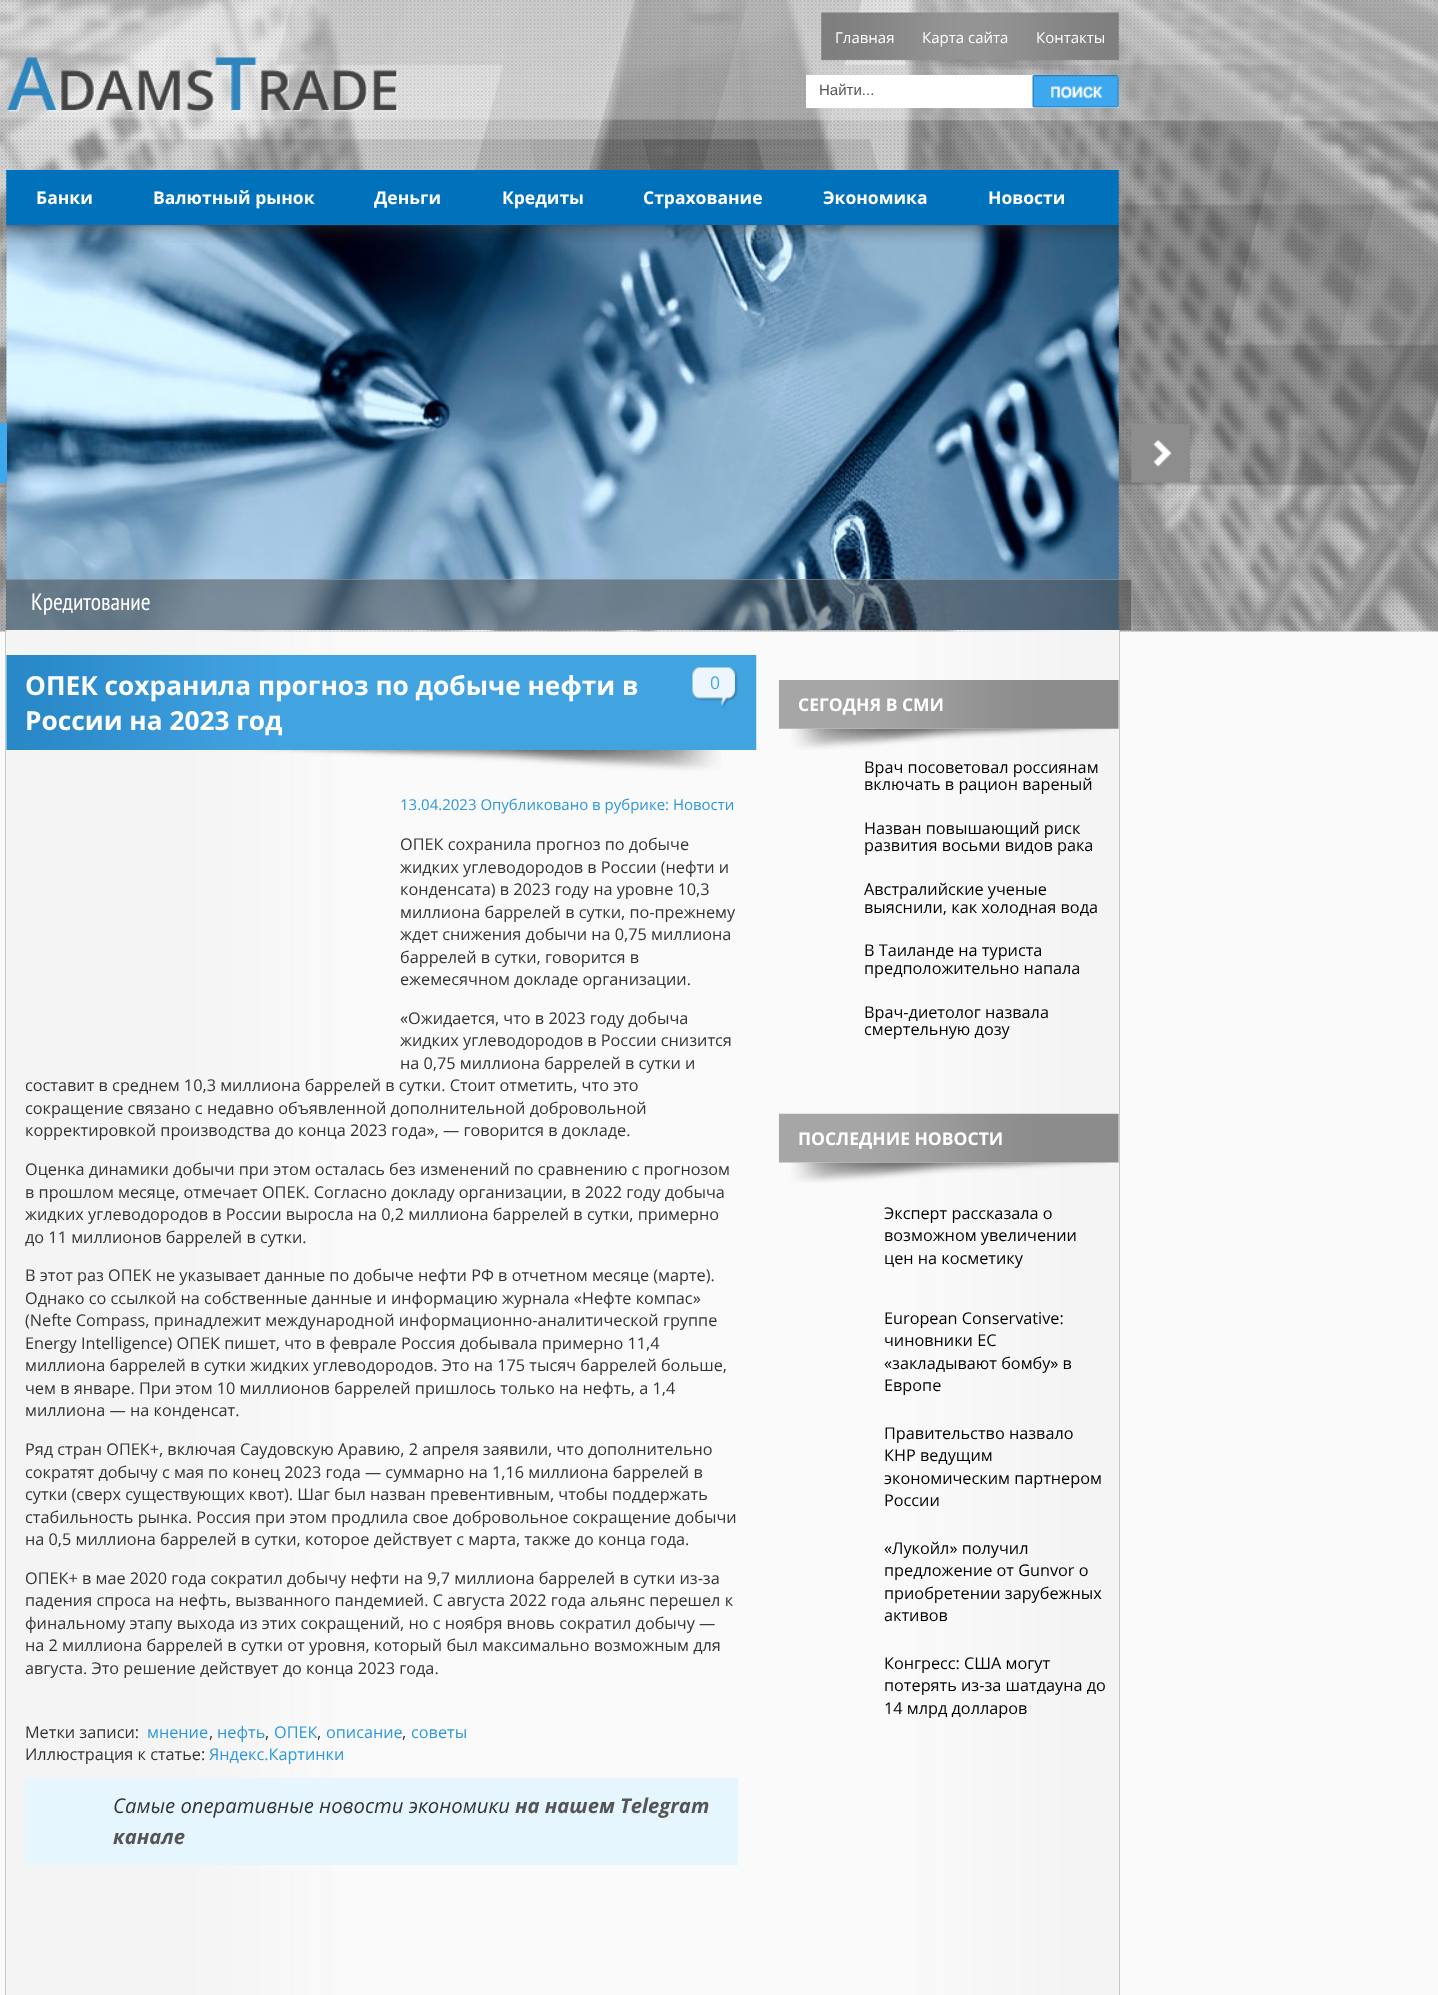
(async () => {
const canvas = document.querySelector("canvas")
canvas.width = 1438
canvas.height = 1995
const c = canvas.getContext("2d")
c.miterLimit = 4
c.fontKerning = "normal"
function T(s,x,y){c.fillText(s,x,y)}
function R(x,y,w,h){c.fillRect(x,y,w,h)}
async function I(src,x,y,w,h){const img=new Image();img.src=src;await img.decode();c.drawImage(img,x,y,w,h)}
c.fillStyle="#fafafa"
R(0,0,1438,1995)
c.fillStyle="#dcdcdc"
R(0,631,1438,1)
await I("1.png",0,0,1438,632)
await I("2.png",821,12,298,60)
c.font="15px Open Sans"
c.fillStyle="#fff"
T("Главная",835,43)
T("Карта сайта",922,43)
T("Контакты",1036,43)
await I("3.png",7,57,391,56)
R(806,75,313,33)
c.font="15px Liberation Sans"
c.fillStyle="#555"
T("Найти...",819,95)
await I("4.png",1032,75,87,33)
await I("7.png",6,225,1113,405)
await I("5.png",6,170,1113,73)
c.font="bold 17.5px Open Sans"
c.fillStyle="#fff"
T("Банки",36,204)
T("Валютный рынок",153,204)
T("Деньги",374,204)
T("Кредиты",502,204)
T("Страхование",643,204)
T("Экономика",823,204)
T("Новости",988,204)
c.fillStyle="#3ea8ee"
R(0,423,7,60)
await I("6.png",1131,424,59,59)
c.fillStyle="#44444480"
R(6,579,1125,51)
c.fillStyle="#aaaaaa80"
R(6,579,1125,1)
c.font="23.75px PT Sans Narrow"
c.fillStyle="#fff"
T("Кредитование",31,610)
await I("8.png",6,630,1113,1365)
c.fillStyle="#c8c8c8"
R(1119,630,1,1365)
R(5,630,1,1365)
await I("9.png",257,750,464,21)
await I("10.png",6,655,751,95)
c.font="bold 26.25px Open Sans"
c.fillStyle="#fff"
T("ОПЕК сохранила прогноз по добыче нефти в",25,695)
T("России на 2023 год",25,730)
await I("11.png",692,667,46,41)
c.font="17.5px Open Sans"
c.fillStyle="#3ea8ee"
T("0",710,689)
c.font="15px Open Sans"
c.fillStyle="#2d98de"
T("13.04.2023 Опубликовано в рубрике: Новости",400,810)
c.font="16.25px Open Sans"
c.fillStyle="#343434"
T("ОПЕК сохранила прогноз по добыче",400,850)
T("жидких углеводородов в России (нефти и",400,873)
T("конденсата) в 2023 году на уровне 10,3",400,895)
T("миллиона баррелей в сутки, по-прежнему",400,918)
T("ждет снижения добычи на 0,75 миллиона",400,940)
T("баррелей в сутки, говорится в",400,963)
T("ежемесячном докладе организации.",400,985)
T("«Ожидается, что в 2023 году добыча",400,1024)
T("жидких углеводородов в России снизится",400,1046)
T("на 0,75 миллиона баррелей в сутки и",400,1069)
T("составит в среднем 10,3 миллиона баррелей в сутки. Стоит отметить, что это",25,1091)
T("сокращение связано с недавно объявленной дополнительной добровольной",25,1114)
T("корректировкой производства до конца 2023 года», — говорится в докладе.",25,1136)
T("Оценка динамики добычи при этом осталась без изменений по сравнению с прогнозом",25,1175)
T("в прошлом месяце, отмечает ОПЕК. Согласно докладу организации, в 2022 году добыча",25,1198)
T("жидких углеводородов в России выросла на 0,2 миллиона баррелей в сутки, примерно",25,1220)
T("до 11 миллионов баррелей в сутки.",25,1243)
T("В этот раз ОПЕК не указывает данные по добыче нефти РФ в отчетном месяце (марте).",25,1281)
T("Однако со ссылкой на собственные данные и информацию журнала «Нефте компас»",25,1304)
T("(Nefte Compass, принадлежит международной информационно-аналитической группе",25,1326)
T("Energy Intelligence) ОПЕК пишет, что в феврале Россия добывала примерно 11,4",25,1349)
T("миллиона баррелей в сутки жидких углеводородов. Это на 175 тысяч баррелей больше,",25,1371)
T("чем в январе. При этом 10 миллионов баррелей пришлось только на нефть, а 1,4",25,1394)
T("миллиона — на конденсат.",25,1416)
T("Ряд стран ОПЕК+, включая Саудовскую Аравию, 2 апреля заявили, что дополнительно",25,1455)
T("сократят добычу с мая по конец 2023 года — суммарно на 1,16 миллиона баррелей в",25,1478)
T("сутки (сверх существующих квот). Шаг был назван превентивным, чтобы поддержать",25,1500)
T("стабильность рынка. Россия при этом продлила свое добровольное сокращение добычи",25,1523)
T("на 0,5 миллиона баррелей в сутки, которое действует с марта, также до конца года.",25,1545)
T("ОПЕК+ в мае 2020 года сократил добычу нефти на 9,7 миллиона баррелей в сутки из-за",25,1584)
T("падения спроса на нефть, вызванного пандемией. С августа 2022 года альянс перешел к",25,1606)
T("финальному этапу выхода из этих сокращений, но с ноября вновь сократил добычу —",25,1629)
T("на 2 миллиона баррелей в сутки от уровня, который был максимально возможным для",25,1651)
T("августа. Это решение действует до конца 2023 года.",25,1674)
T("Метки записи:",25,1738)
c.fillStyle="#2d98de"
T("мнение",147,1738)
c.fillStyle="#343434"
T(",",209,1738)
c.fillStyle="#2d98de"
T("нефть",217,1738)
c.fillStyle="#343434"
T(",",265,1738)
c.fillStyle="#2d98de"
T("ОПЕК",274,1738)
c.fillStyle="#343434"
T(",",317,1738)
c.fillStyle="#2d98de"
T("описание",326,1738)
c.fillStyle="#343434"
T(",",402,1738)
c.fillStyle="#2d98de"
T("советы",411,1738)
c.fillStyle="#343434"
T("Иллюстрация к статье:",25,1760)
c.fillStyle="#2d98de"
T("Яндекс.Картинки",209,1760)
c.fillStyle="#e5f6ff"
R(25,1778,713,87)
c.font="italic 20.3px Open Sans"
c.fillStyle="#343434"
T("Самые оперативные новости экономики",113,1813)
c.font="italic bold 20.3px Open Sans"
c.fillStyle="#555"
T("на нашем Telegram",515,1813)
T("канале",113,1844)
await I("12.png",791,728,320,22)
await I("13.png",778,680,341,49)
c.font="bold 17.5px Open Sans"
c.fillStyle="#fff"
T("СЕГОДНЯ В СМИ",798,711)
c.font="16.25px Open Sans"
c.fillStyle="#000"
T("Врач посоветовал россиянам",864,773)
T("включать в рацион вареный",864,790)
T("Назван повышающий риск",864,834)
T("развития восьми видов рака",864,851)
T("Австралийские ученые",864,895)
T("выяснили, как холодная вода",864,913)
T("В Таиланде на туриста",864,956)
T("предположительно напала",864,974)
T("Врач-диетолог назвала",864,1018)
T("смертельную дозу",864,1035)
await I("14.png",791,1162,317,21)
await I("15.png",778,1113,341,50)
c.font="bold 17.5px Open Sans"
c.fillStyle="#fff"
T("ПОСЛЕДНИЕ НОВОСТИ",798,1145)
c.font="16.25px Open Sans"
c.fillStyle="#000"
T("Эксперт рассказала о",884,1219)
T("возможном увеличении",884,1241)
T("цен на косметику",884,1264)
T("European Conservative:",884,1324)
T("чиновники ЕС",884,1346)
T("«закладывают бомбу» в",884,1369)
T("Европе",884,1391)
T("Правительство назвало",884,1439)
T("КНР ведущим",884,1461)
T("экономическим партнером",884,1484)
T("России",884,1506)
T("«Лукойл» получил",884,1554)
T("предложение от Gunvor о",884,1576)
T("приобретении зарубежных",884,1599)
T("активов",884,1621)
T("Конгресс: США могут",884,1669)
T("потерять из-за шатдауна до",884,1691)
T("14 млрд долларов",884,1714)
})()
